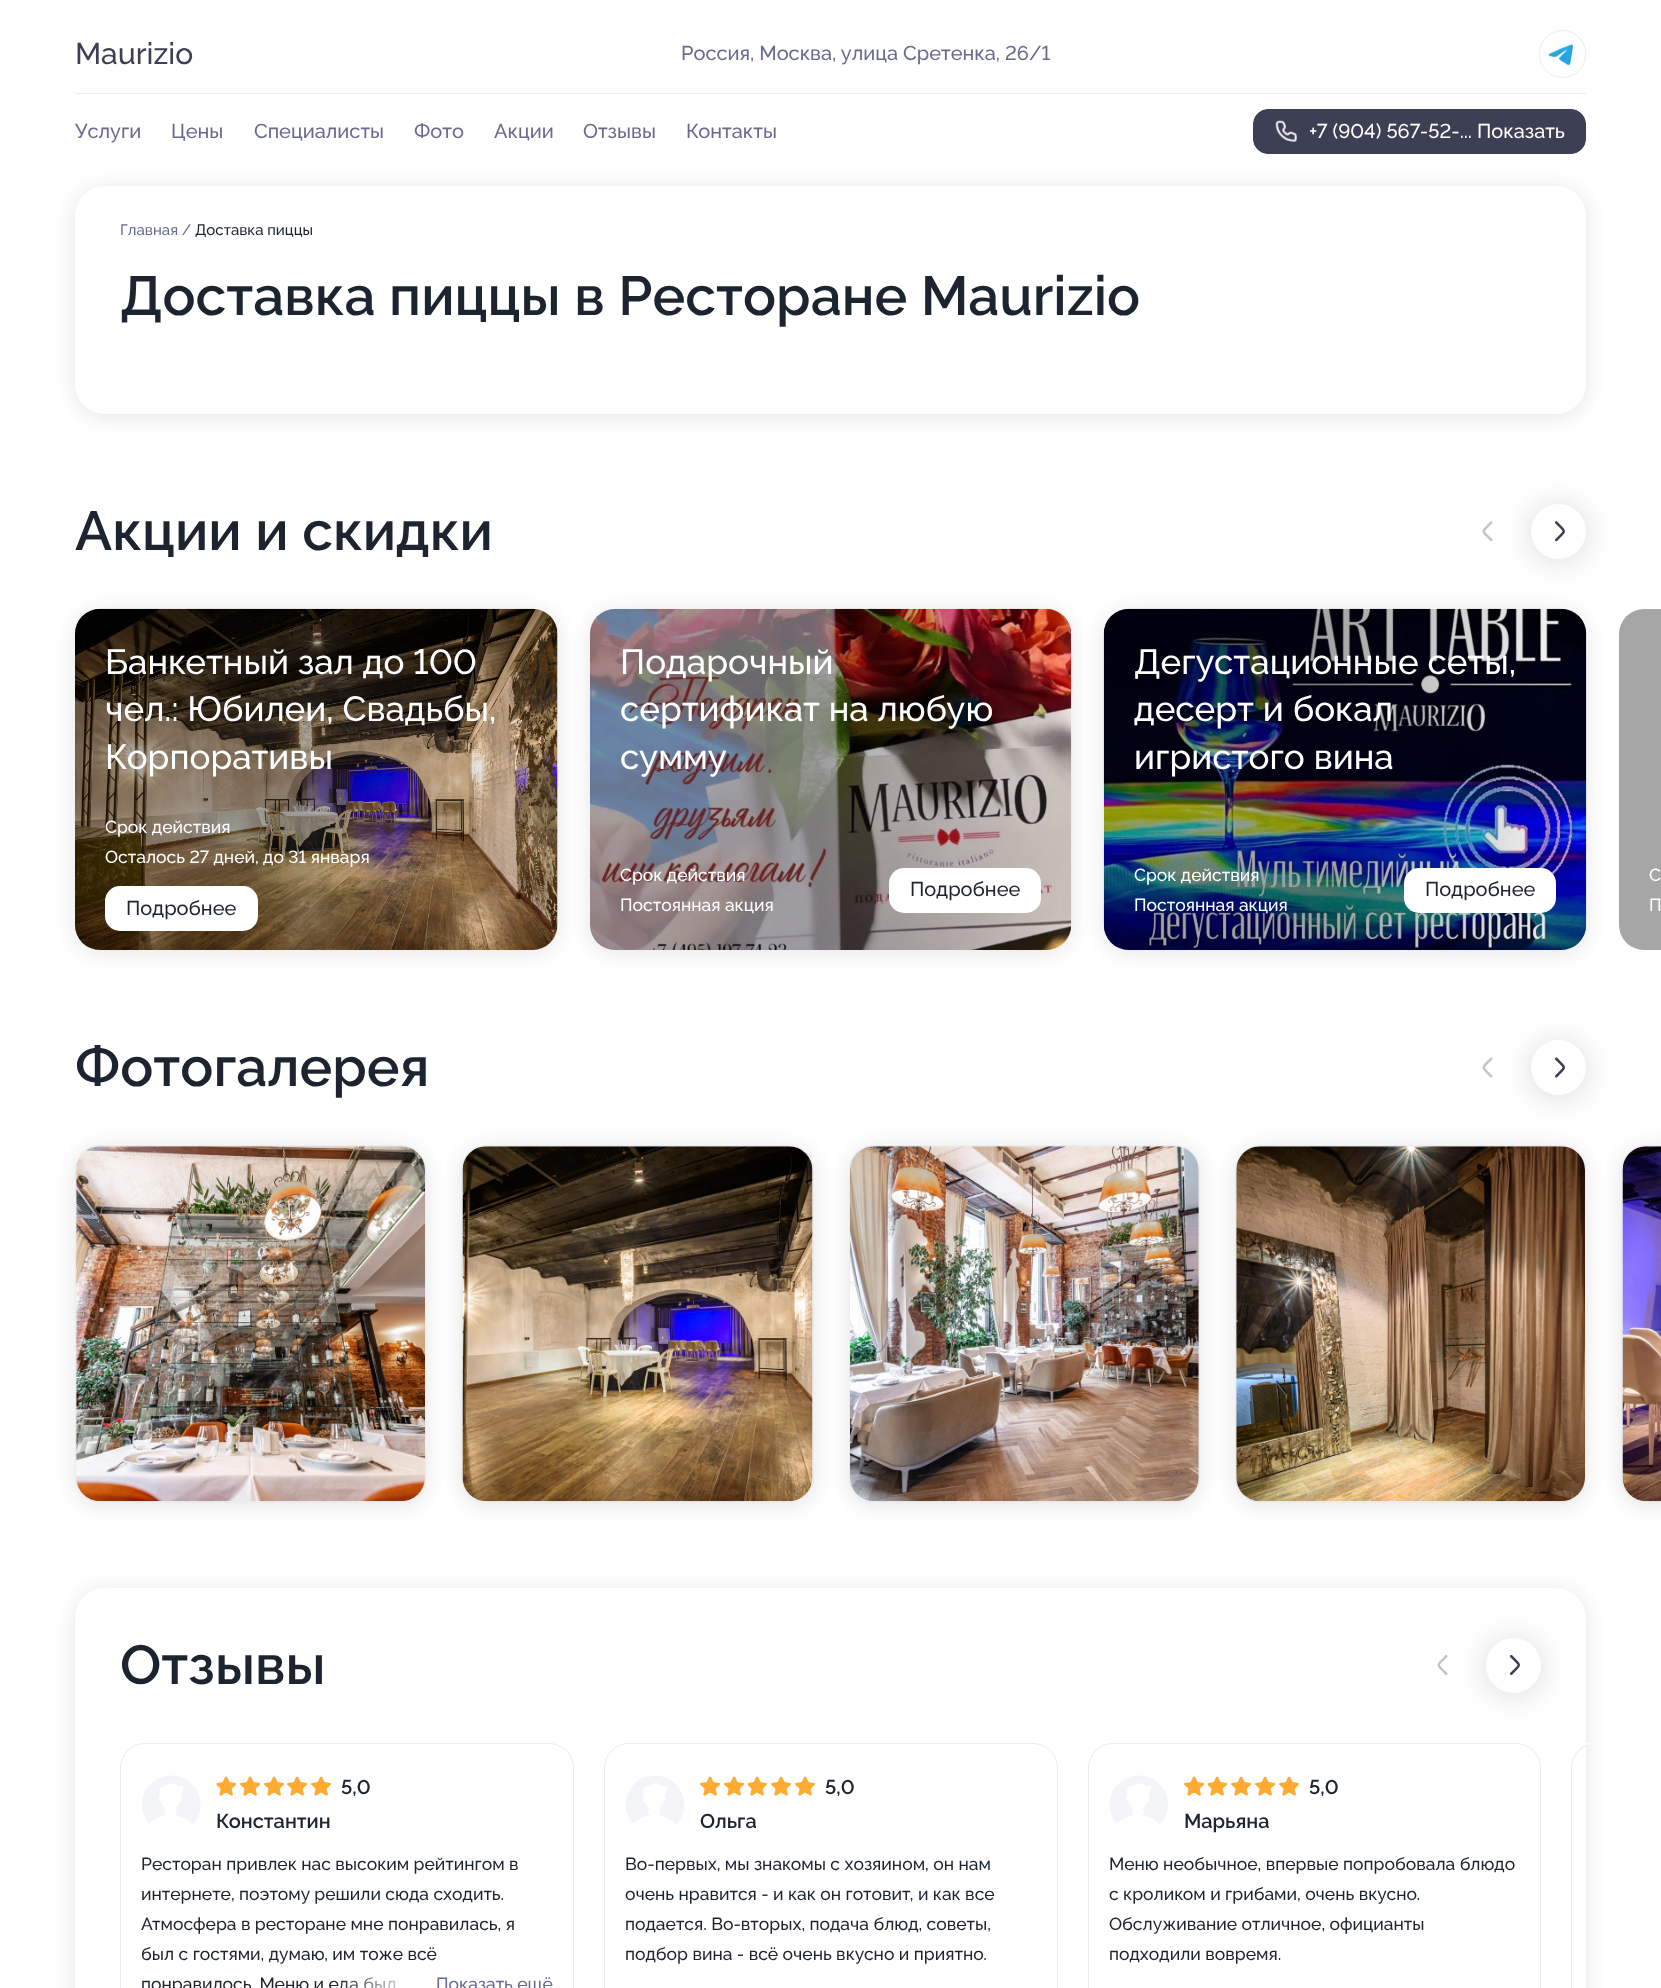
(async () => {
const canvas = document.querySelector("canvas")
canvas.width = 1661
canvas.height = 1988
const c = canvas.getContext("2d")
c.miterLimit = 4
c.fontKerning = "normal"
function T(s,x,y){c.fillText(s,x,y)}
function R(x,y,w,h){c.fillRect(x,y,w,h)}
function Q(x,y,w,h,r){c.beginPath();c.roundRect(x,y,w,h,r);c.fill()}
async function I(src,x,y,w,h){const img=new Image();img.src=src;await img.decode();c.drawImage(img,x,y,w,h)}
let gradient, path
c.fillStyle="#fff"
R(0,0,1661,1988)
c.fillStyle="#ececee"
R(75,93,1511,1)
c.font="500 30px Raleway"
c.fillStyle="#3d3f55"
T("Maurizio",75,64)
c.font="500 20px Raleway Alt"
c.fillStyle="#676b8f"
T("Россия, Москва, улица Сретенка, 26/1",681,60)
c.beginPath()
c.roundRect(1539.5,30.5,46,47,23)
c.strokeStyle="#ececee"
c.stroke()
await I("1.png",1548,44,25,22)
c.font="500 20px Raleway"
T("Услуги",75,138)
T("Цены",171,138)
T("Специалисты",254,138)
T("Фото",414,138)
T("Акции",494,138)
T("Отзывы",583,138)
T("Контакты",686,138)
c.fillStyle="#3d3f55"
c.beginPath()
c.roundRect(1253.5,109.5,332,44,14.5)
c.fill()
c.strokeStyle="#3d3f55"
c.stroke()
await I("2.png",1275,120,22,22)
c.font="500 20px Raleway Alt"
c.fillStyle="#fff"
T("+7 (904) 567-52-...",1309,138)
c.font="500 20px Raleway"
T("Показать",1477,138)
c.fillStyle="#0000000d"
c.filter="blur(10px)"
c.beginPath()
c.roundRect(75,186,1511,228,30)
c.fill()
c.filter="none"
c.filter="blur(10px)"
c.beginPath()
c.roundRect(75,191,1511,228,30)
c.fill()
c.filter="none"
c.fillStyle="#fff"
Q(75,186,1511,228,30)
c.font="500 15px Raleway"
c.fillStyle="#676b8f"
T("Главная /",120,235)
c.fillStyle="#1c242f"
T("Доставка пиццы",195,235)
c.font="600 55px Raleway"
T("Доставка пиццы в Ресторане Maurizio",120,315)
T("Акции и скидки",75,550)
c.fillStyle="#00000026"
c.filter="blur(15.5px)"
c.beginPath()
c.roundRect(1531,506,55,55,27.5)
c.fill()
c.filter="none"
c.fillStyle="#fff"
c.beginPath()
c.arc(1558.5,531.5,27.5,0,7)
c.fill()
await I("3.png",1555,521,10,21)
await I("4.png",1482,521,11,21)
c.fillStyle="#0000000d"
c.filter="blur(10px)"
c.beginPath()
c.roundRect(75,609,483,341,25)
c.fill()
c.filter="none"
c.filter="blur(10px)"
c.beginPath()
c.roundRect(75,614,483,341,25)
c.fill()
c.filter="none"
await I("5.png",75,608,483,342)
gradient = c.createLinearGradient(558,785,75,785)
gradient.addColorStop(0,"#00000000")
gradient.addColorStop(.52,"#00000059")
c.fillStyle = gradient
Q(75,609,483,341,25)
c.font="500 35px Raleway Alt"
c.fillStyle="#fff"
T("Банкетный зал до 100",105,674)
c.font="500 35px Raleway"
T("чел.: Юбилеи, Свадьбы,",105,721)
T("Корпоративы",105,769)
c.font="500 17.5px Raleway"
T("Срок действия",105,833)
c.font="500 17.5px Raleway Alt"
T("Осталось 27 дней, до 31 января",105,863)
Q(105,886,153,45,15)
c.font="500 20px Raleway"
c.fillStyle="#1c242f"
T("Подробнее",126,915)
c.fillStyle="#0000000d"
c.filter="blur(10px)"
c.beginPath()
c.roundRect(590,609,481,341,25)
c.fill()
c.filter="none"
c.filter="blur(10px)"
c.beginPath()
c.roundRect(590,614,481,341,25)
c.fill()
c.filter="none"
await I("6.png",590,608,482,342)
gradient = c.createLinearGradient(1071,779,590,779)
gradient.addColorStop(0,"#00000000")
gradient.addColorStop(.52,"#00000059")
c.fillStyle = gradient
Q(590,609,481,341,25)
c.font="500 35px Raleway"
c.fillStyle="#fff"
T("Подарочный",620,674)
T("сертификат на любую",620,721)
T("сумму",620,769)
c.font="500 17.5px Raleway"
T("Срок действия",620,881)
T("Постоянная акция",620,911)
Q(889,868,152,45,15)
c.font="500 20px Raleway"
c.fillStyle="#1c242f"
T("Подробнее",910,896)
c.fillStyle="#0000000d"
c.filter="blur(10px)"
c.beginPath()
c.roundRect(1104,609,482,341,25)
c.fill()
c.filter="none"
c.filter="blur(10px)"
c.beginPath()
c.roundRect(1104,614,482,341,25)
c.fill()
c.filter="none"
await I("7.png",1103,608,484,342)
gradient = c.createLinearGradient(1586,779,1104,779)
gradient.addColorStop(0,"#00000000")
gradient.addColorStop(.52,"#00000059")
c.fillStyle = gradient
Q(1104,609,482,341,25)
c.font="500 35px Raleway"
c.fillStyle="#fff"
T("Дегустационные сеты,",1134,674)
T("десерт и бокал",1134,721)
T("игристого вина",1134,769)
c.font="500 17.5px Raleway"
T("Срок действия",1134,881)
T("Постоянная акция",1134,911)
Q(1404,868,152,45,15)
c.font="500 20px Raleway"
c.fillStyle="#1c242f"
T("Подробнее",1425,896)
gradient = c.createLinearGradient(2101,779,1619,779)
gradient.addColorStop(0,"#00000000")
gradient.addColorStop(.52,"#00000059")
c.fillStyle = gradient
c.beginPath()
c.roundRect(1619,609,42,341,[25,0,0,25])
c.fill()
c.font="500 17.5px Raleway"
c.fillStyle="#fff"
T("С",1649,881)
T("П",1649,911)
c.font="600 55px Raleway"
c.fillStyle="#1c242f"
T("Фотогалерея",75,1086)
c.fillStyle="#00000026"
c.filter="blur(15.5px)"
c.beginPath()
c.roundRect(1531,1043,55,55,27.5)
c.fill()
c.filter="none"
c.fillStyle="#fff"
c.beginPath()
c.arc(1558.5,1067.5,27.5,0,7)
c.fill()
await I("8.png",1555,1057,10,21)
await I("9.png",1482,1057,11,21)
c.fillStyle="#0000000d"
c.filter="blur(10px)"
c.beginPath()
c.roundRect(75,1145,351,358,25)
c.fill()
c.filter="none"
c.filter="blur(10px)"
c.beginPath()
c.roundRect(75,1150,351,358,25)
c.fill()
c.filter="none"
c.beginPath()
c.roundRect(75.5,1145.5,350,357,24.5)
c.strokeStyle="#ececee"
c.stroke()
await I("10.png",76,1146,349,356)
c.filter="blur(10px)"
c.beginPath()
c.roundRect(461,1145,353,358,25)
c.fill()
c.filter="none"
c.filter="blur(10px)"
c.beginPath()
c.roundRect(461,1150,353,358,25)
c.fill()
c.filter="none"
c.beginPath()
c.roundRect(461.5,1145.5,352,357,24.5)
c.stroke()
await I("11.png",462,1146,351,356)
c.filter="blur(10px)"
c.beginPath()
c.roundRect(849,1145,351,358,25)
c.fill()
c.filter="none"
c.filter="blur(10px)"
c.beginPath()
c.roundRect(849,1150,351,358,25)
c.fill()
c.filter="none"
c.beginPath()
c.roundRect(849.5,1145.5,350,357,24.5)
c.stroke()
await I("12.png",850,1146,349,356)
c.filter="blur(10px)"
c.beginPath()
c.roundRect(1235,1145,351,358,25)
c.fill()
c.filter="none"
c.filter="blur(10px)"
c.beginPath()
c.roundRect(1235,1150,351,358,25)
c.fill()
c.filter="none"
c.beginPath()
c.roundRect(1235.5,1145.5,350,357,24.5)
c.stroke()
await I("13.png",1236,1146,349,356)
c.filter="blur(10px)"
c.beginPath()
c.roundRect(1621,1145,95,358,25)
c.fill()
c.filter="none"
c.filter="blur(10px)"
c.beginPath()
c.roundRect(1621,1150,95,358,25)
c.fill()
c.filter="none"
c.beginPath()
c.roundRect(1621.5,1145.5,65,357,24.5)
c.stroke()
await I("14.png",1622,1146,39,356)
c.filter="blur(10px)"
c.beginPath()
c.roundRect(75,1588,1511,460,30)
c.fill()
c.filter="none"
c.filter="blur(10px)"
c.beginPath()
c.roundRect(75,1593,1511,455,30)
c.fill()
c.filter="none"
c.fillStyle="#fff"
Q(75,1588,1511,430,30)
c.fillStyle="#1c242f"
T("Отзывы",120,1684)
c.fillStyle="#00000026"
c.filter="blur(15.5px)"
c.beginPath()
c.roundRect(1486,1640,55,55,27.5)
c.fill()
c.filter="none"
c.fillStyle="#fff"
c.beginPath()
c.arc(1513.5,1665.5,27.5,0,7)
c.fill()
await I("15.png",1510,1655,10,20)
await I("16.png",1437,1655,11,20)
c.beginPath()
c.roundRect(120.5,1743.5,453,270,24.5)
c.stroke()
await I("17.png",142,1775,59,49)
await I("18.png",216,1776,115,20)
await I("19.png",216,1776,115,20)
c.font="600 20px Raleway Alt"
c.fillStyle="#1c242f"
T("5,0",341,1794)
c.font="600 20px Raleway"
T("Константин",216,1828)
c.font="500 17.5px Raleway"
T("Ресторан привлек нас высоким рейтингом в",141,1870)
T("интернете, поэтому решили сюда сходить.",141,1900)
T("Атмосфера в ресторане мне понравилась, я",141,1930)
T("был с гостями, думаю, им тоже всё",141,1960)
T("понравилось. Меню и еда был",141,1990)
gradient = c.createLinearGradient(336,1984,436,1984)
gradient.addColorStop(0,"#ffffff00")
gradient.addColorStop(.8,"#fff")
c.fillStyle = gradient
R(338,1977,58,11)
c.fillStyle="#676b8f"
T("Показать ещё",436,1990)
c.beginPath()
c.roundRect(604.5,1743.5,453,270,24.5)
c.stroke()
await I("20.png",626,1775,58,49)
await I("21.png",700,1776,115,20)
await I("22.png",700,1776,115,20)
c.font="600 20px Raleway Alt"
c.fillStyle="#1c242f"
T("5,0",825,1794)
c.font="600 20px Raleway"
T("Ольга",700,1828)
c.font="500 17.5px Raleway"
T("Во-первых, мы знакомы с хозяином, он нам",625,1870)
T("очень нравится - и как он готовит, и как все",625,1900)
T("подается. Во-вторых, подача блюд, советы,",625,1930)
T("подбор вина - всё очень вкусно и приятно.",625,1960)
c.beginPath()
c.roundRect(1088.5,1743.5,452,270,24.5)
c.stroke()
await I("23.png",1109,1775,59,49)
await I("24.png",1184,1776,115,20)
await I("25.png",1184,1776,115,20)
c.font="600 20px Raleway Alt"
T("5,0",1309,1794)
c.font="600 20px Raleway"
T("Марьяна",1184,1828)
c.font="500 17.5px Raleway"
T("Меню необычное, впервые попробовала блюдо",1109,1870)
T("с кроликом и грибами, очень вкусно.",1109,1900)
T("Обслуживание отличное, официанты",1109,1930)
T("подходили вовремя.",1109,1960)
c.fillStyle="#fff"
path = new Path2D("M1596 1743h-10v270h10c-14 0-25-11-25-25v-220c0-14 11-25 25-25z")
c.fill(path)
c.fillStyle="#ececee"
path = new Path2D("M1586 1745c-9 4-15 13-15 23v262c0 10 6 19 15 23v-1c-8-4-14-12-14-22v-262c0-10 6-18 14-22z")
c.fill(path)
})()
